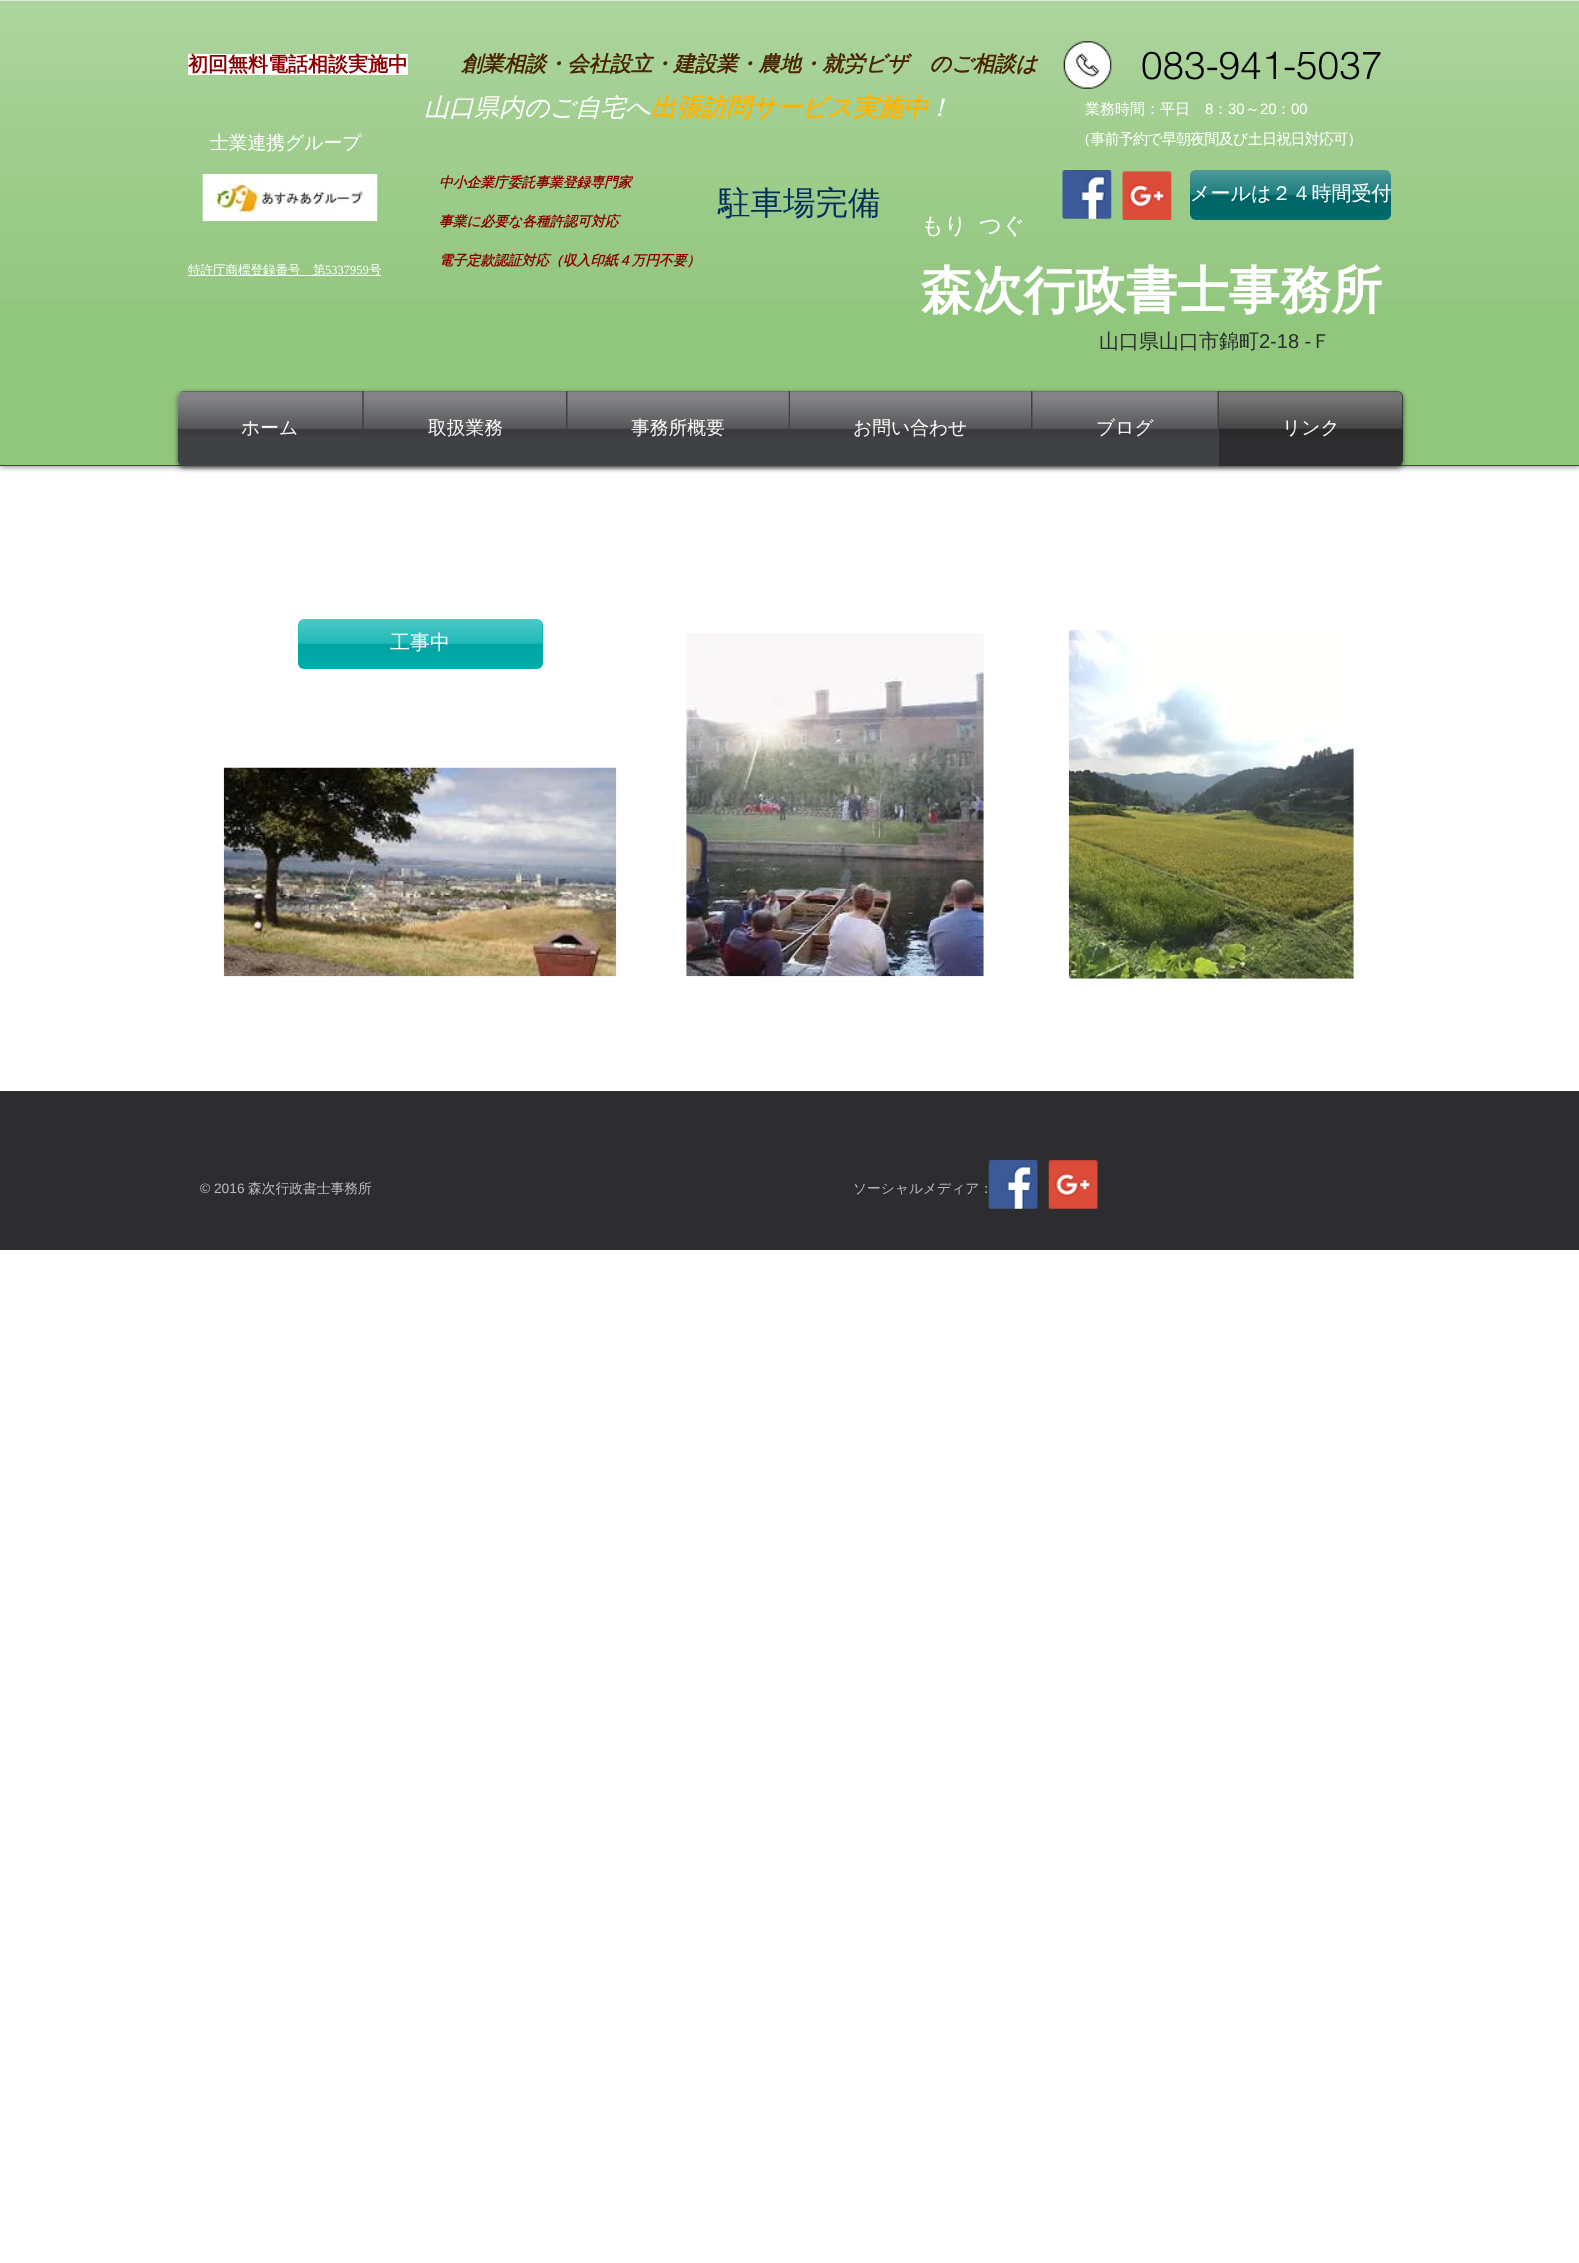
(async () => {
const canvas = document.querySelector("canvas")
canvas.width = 1579
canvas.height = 2263
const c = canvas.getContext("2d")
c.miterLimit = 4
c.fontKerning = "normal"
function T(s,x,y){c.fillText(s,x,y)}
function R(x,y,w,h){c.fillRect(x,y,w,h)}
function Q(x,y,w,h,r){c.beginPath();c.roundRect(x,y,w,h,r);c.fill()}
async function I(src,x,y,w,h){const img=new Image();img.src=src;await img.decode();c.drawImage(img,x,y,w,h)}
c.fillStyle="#fff"
R(0,0,1579,2263)
c.fillStyle="#00000099"
c.filter="blur(3px)"
c.beginPath()
c.rect(0,0,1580,466)
c.fill()
c.filter="none"
c.fillStyle="#91c67d"
R(0,1,1579,464)
await I("1.png",0,1,1579,300)
c.fillStyle="#3a4f32"
R(0,465,1579,1)
c.fillStyle="#deeed8"
R(0,0,1579,1)
c.fillStyle="#fff"
R(188,54,220,21)
c.font="bold 20px WenQuanYi Zen Hei"
c.fillStyle="#8b0000"
T("初回無料電話相談実施中",188,71)
c.font="italic bold 21.25px WenQuanYi Zen Hei"
c.fillStyle="#4b2400"
T("創業相談・会社設立・建設業・農地・就労ビザ　のご相談は",461,71)
await I("2.png",1063,41,49,48)
c.font="300 38.75px helvetica"
c.fillStyle="#000"
T("083-941-5037",1141,79)
c.font="500 18.75px WenQuanYi Zen Hei"
c.fillStyle="#fff"
T("士業連携グループ",210,149)
c.font="italic 500 25px WenQuanYi Zen Hei"
T("山口県内のご自宅へ",424,116)
c.font="italic bold 25px WenQuanYi Zen Hei"
c.fillStyle="#ffb400"
T("出張訪問サービス実施中",651,116)
c.font="italic 500 25px WenQuanYi Zen Hei"
c.fillStyle="#fff"
T("！",927,116)
c.font="500 15px WenQuanYi Zen Hei"
T("業務時間：平日",1085,114)
c.font="15px Liberation Sans"
T("8",1205,114)
c.font="500 15px WenQuanYi Zen Hei"
T("：",1213,114)
c.font="15px Liberation Sans"
T("30",1228,114)
c.font="500 15px WenQuanYi Zen Hei"
T("～",1245,114)
c.font="15px Liberation Sans"
T("20",1260,114)
c.font="500 15px WenQuanYi Zen Hei"
T("：",1276,114)
c.font="15px Liberation Sans"
T("00",1291,114)
c.letterSpacing="-0.75px"
c.font="500 15px WenQuanYi Zen Hei"
T("（事前予約で早朝夜間及び土日祝日対応可）",1076,144)
await I("3.png",202,173,176,49)
c.letterSpacing="0px"
c.font="italic bold 13.75px WenQuanYi Zen Hei"
c.fillStyle="#8b0000"
T("中小企業庁委託事業登録専門家",439,187)
c.font="500 32.5px WenQuanYi Zen Hei"
c.fillStyle="#002e5d"
T("駐車場完備",718,214)
await I("4.png",1062,170,50,49)
await I("5.png",1122,171,50,49)
c.fillStyle="#006c6d"
Q(1190,170,201,50,6)
await I("6.png",1190,170,201,46)
c.font="500 20px WenQuanYi Zen Hei"
c.fillStyle="#fff"
T("メールは２４時間受付",1190,200)
c.font="italic bold 13.75px WenQuanYi Zen Hei"
c.fillStyle="#8b0000"
T("事業に必要な各種許認可対応",439,226)
c.font="500 22.5px WenQuanYi Zen Hei"
c.fillStyle="#fff"
T("もり",921,233)
T("つぐ",979,233)
c.font="italic bold 13.75px WenQuanYi Zen Hei"
c.fillStyle="#8b0000"
T("電子定款認証対応（収入印紙４万円不要）",439,265)
c.fillStyle="#fff"
R(188,275,193,1)
c.font="500 12.5px WenQuanYi Zen Hei"
T("特許庁商標登録番号　第",188,274)
c.font="12.5px Liberation Serif"
T("5337959",325,274)
c.font="500 12.5px WenQuanYi Zen Hei"
T("号",369,274)
c.font="bold 51.25px WenQuanYi Zen Hei"
T("森次行政書士事務所",921,308)
c.font="500 20px WenQuanYi Zen Hei"
c.fillStyle="#2d2d2f"
T("山口県山口市錦町",1099,348)
c.font="20px Liberation Sans"
T("2-18 -",1259,348)
c.font="500 20px WenQuanYi Zen Hei"
T("Ｆ",1311,348)
c.fillStyle="#00000099"
c.filter="blur(2.5px)"
c.beginPath()
c.roundRect(178,393,1225,75,6)
c.fill()
c.filter="none"
await I("7.png",177,391,1226,38)
c.fillStyle="#404144"
c.beginPath()
c.roundRect(178,391,185,75,[6,0,0,6])
c.fill()
c.font="500 18.75px WenQuanYi Zen Hei"
c.fillStyle="#fff"
T("ホーム",241,434)
await I("8.png",177,391,186,45)
c.fillStyle="#404144"
R(363,391,855,75)
c.fillStyle="#fff"
T("取扱業務",428,434)
await I("9.png",363,391,203,46)
T("事務所概要",631,434)
await I("10.png",567,391,222,46)
T("お問い合わせ",853,434)
await I("11.png",790,391,241,46)
T("ブログ",1096,434)
await I("12.png",1032,391,186,46)
c.fillStyle="#2d2d2f"
c.beginPath()
c.roundRect(1218,391,185,75,[0,6,6,0])
c.fill()
c.fillStyle="#404144"
R(1218,391,1,75)
c.fillStyle="#fff"
T("リンク",1282,434)
await I("13.png",1219,391,184,46)
c.fillStyle="#01b1af"
Q(298,619,245,50,6)
await I("14.png",298,619,245,49)
c.font="500 20px WenQuanYi Zen Hei"
c.fillStyle="#fff"
T("工事中",390,649)
await I("15.png",686,633,298,344)
await I("16.png",1068,630,286,349)
await I("17.png",223,767,394,210)
c.fillStyle="#2d2d2f"
R(0,1091,1579,159)
c.font="13.75px Liberation Sans"
c.fillStyle="#b8bbc1"
T("© 2016",200,1193)
c.font="500 13.75px WenQuanYi Zen Hei"
T("森次行政書士事務所",248,1193)
T("ソーシャルメディア：",853,1193)
await I("18.png",988,1160,50,49)
await I("19.png",1048,1160,50,49)
})()
